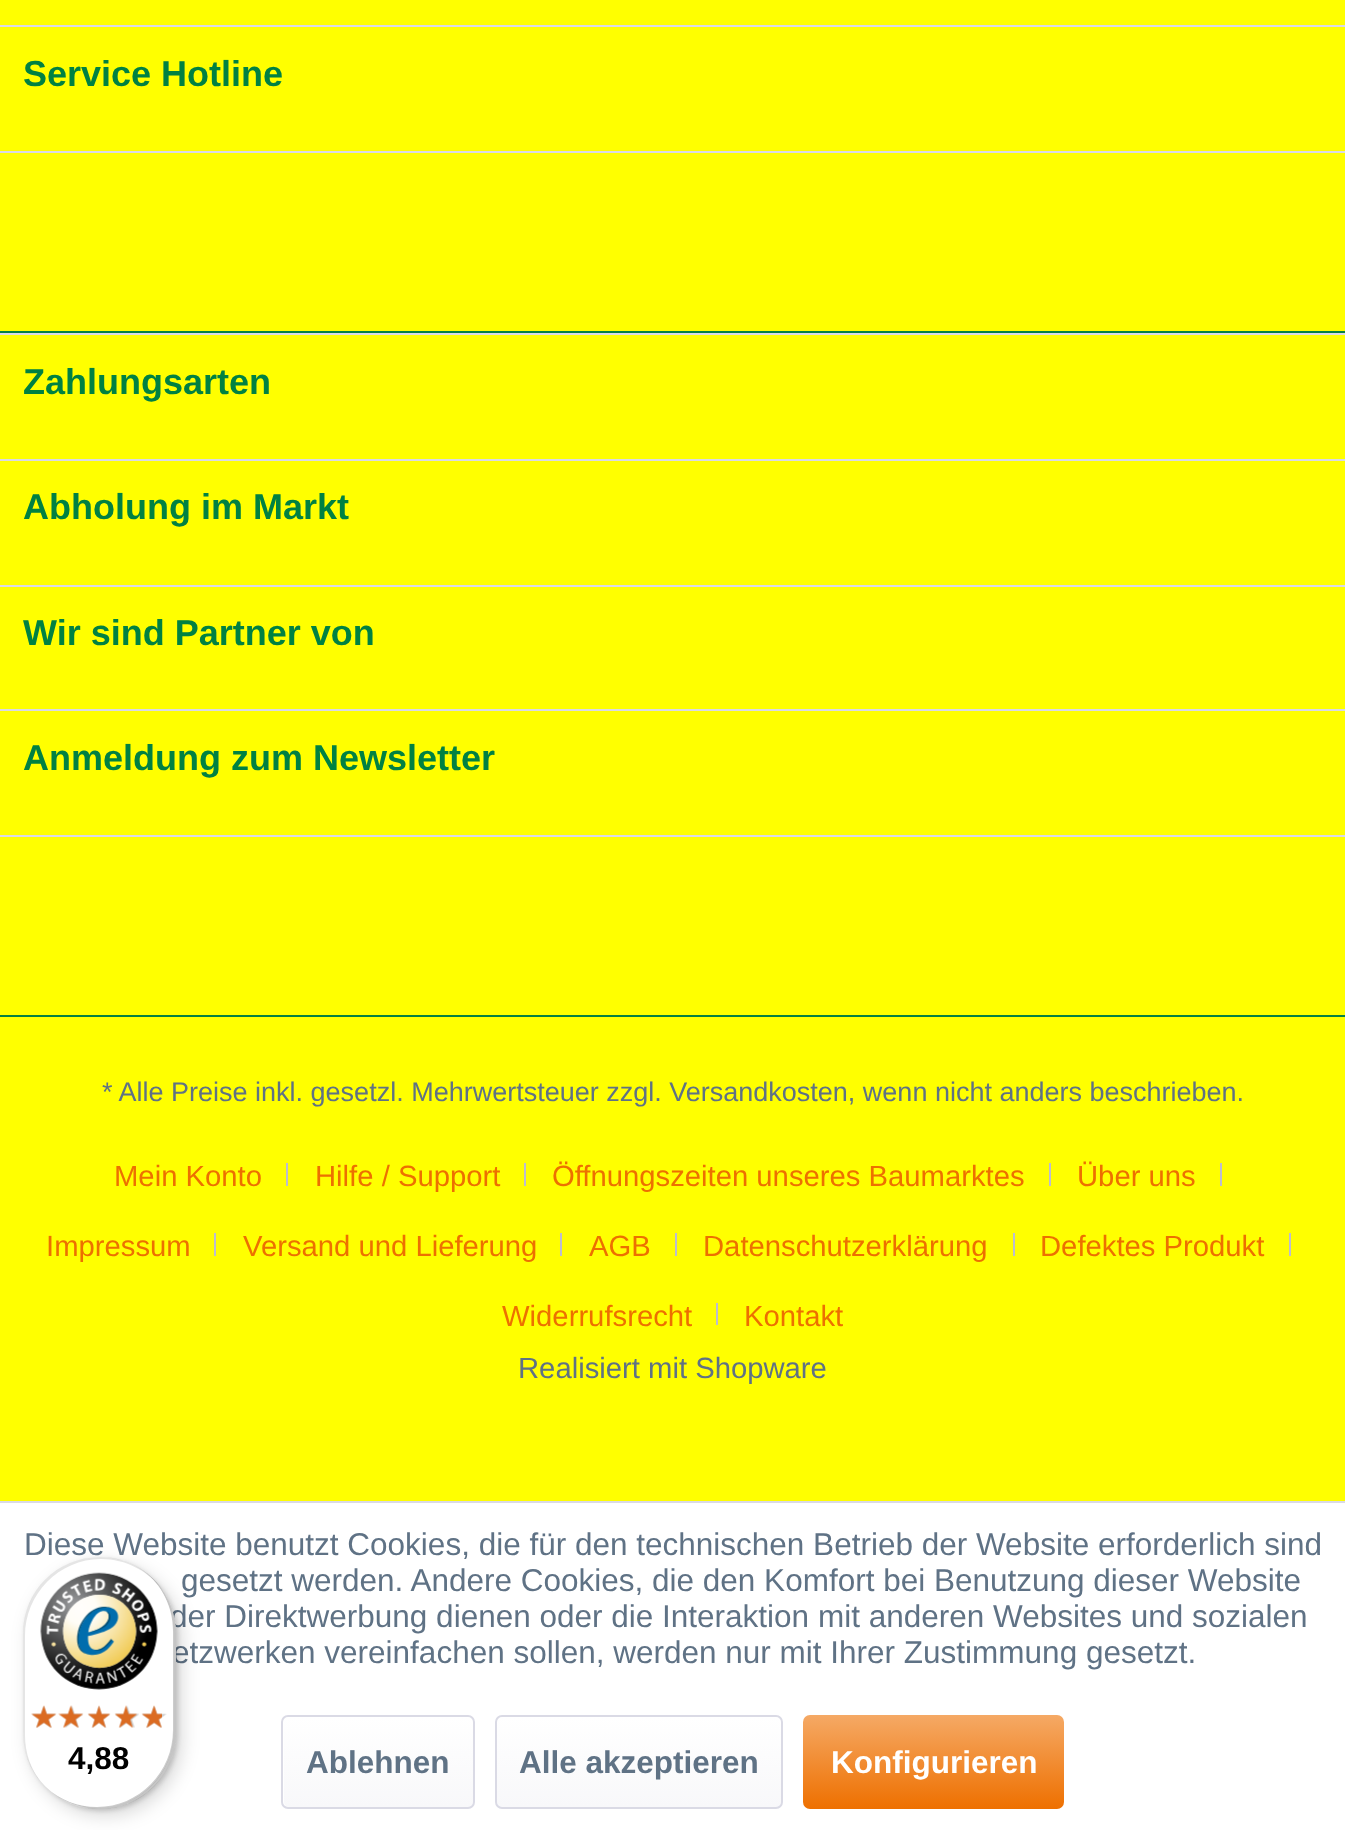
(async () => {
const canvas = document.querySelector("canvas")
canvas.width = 1345
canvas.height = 1830
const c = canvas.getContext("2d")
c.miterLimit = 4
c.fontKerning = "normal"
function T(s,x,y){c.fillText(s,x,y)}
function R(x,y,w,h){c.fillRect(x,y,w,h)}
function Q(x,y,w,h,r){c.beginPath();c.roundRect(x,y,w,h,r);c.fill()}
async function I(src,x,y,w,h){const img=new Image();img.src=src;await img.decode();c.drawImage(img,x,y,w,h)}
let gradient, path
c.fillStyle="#ff0"
R(0,0,1345,1830)
c.fillStyle="#068142"
R(0,331,1345,2)
c.fillStyle="#dadae5"
R(0,25,1345,2)
R(0,151,1345,2)
c.font="bold 36px Liberation Sans"
c.fillStyle="#008142"
T("Service Hotline",23,86)
c.fillStyle="#068142"
R(0,1015,1345,2)
c.fillStyle="#dadae5"
R(0,333,1345,2)
c.fillStyle="#008142"
T("Zahlungsarten",23,394)
c.fillStyle="#dadae5"
R(0,459,1345,2)
c.fillStyle="#008142"
T("Abholung im Markt",23,519)
c.fillStyle="#dadae5"
R(0,585,1345,2)
c.fillStyle="#008142"
T("Wir sind Partner von",23,645)
c.fillStyle="#dadae5"
R(0,709,1345,2)
R(0,835,1345,2)
c.fillStyle="#008142"
T("Anmeldung zum Newsletter",23,770)
c.font="27px Liberation Sans"
c.fillStyle="#5f7285"
T("* Alle Preise inkl. gesetzl. Mehrwertsteuer zzgl. Versandkosten, wenn nicht anders beschrieben.",102,1101)
c.font="29.25px Liberation Sans"
c.fillStyle="#ed7000"
T("Mein Konto",114,1186)
c.fillStyle="#bcbcd0"
R(286,1163,2,23)
c.fillStyle="#ed7000"
T("Hilfe / Support",315,1186)
c.fillStyle="#bcbcd0"
R(524,1163,2,23)
c.fillStyle="#ed7000"
T("Öffnungszeiten unseres Baumarktes",552,1186)
c.fillStyle="#bcbcd0"
R(1049,1163,2,23)
c.fillStyle="#ed7000"
T("Über uns",1077,1186)
c.fillStyle="#bcbcd0"
R(1220,1163,2,23)
c.fillStyle="#ed7000"
T("Impressum",46,1256)
c.fillStyle="#bcbcd0"
R(214,1233,2,23)
c.fillStyle="#ed7000"
T("Versand und Lieferung",243,1256)
c.fillStyle="#bcbcd0"
R(560,1233,2,23)
c.fillStyle="#ed7000"
T("AGB",589,1256)
c.fillStyle="#bcbcd0"
R(675,1233,2,23)
c.fillStyle="#ed7000"
T("Datenschutzerklärung",703,1256)
c.fillStyle="#bcbcd0"
R(1013,1233,2,23)
c.fillStyle="#ed7000"
T("Defektes Produkt",1040,1256)
c.fillStyle="#bcbcd0"
R(1289,1233,2,23)
c.fillStyle="#ed7000"
T("Widerrufsrecht",502,1326)
c.fillStyle="#bcbcd0"
R(716,1303,2,22)
c.fillStyle="#ed7000"
T("Kontakt",744,1326)
c.fillStyle="#5f7285"
T("Realisiert mit Shopware",518,1378)
c.fillStyle="#fff"
R(0,1503,1345,327)
c.fillStyle="#dadae5"
R(0,1501,1345,2)
c.font="31.5px Liberation Sans"
c.fillStyle="#5f7285"
T("Diese Website benutzt Cookies, die für den technischen Betrieb der Website erforderlich sind",24,1555)
T("gesetzt werden. Andere Cookies, die den Komfort bei Benutzung dieser Website",181,1591)
T("der Direktwerbung dienen oder die Interaktion mit anderen Websites und sozialen",170,1627)
T("etzwerken vereinfachen sollen, werden nur mit Ihrer Zustimmung gesetzt.",172,1663)
gradient = c.createLinearGradient(378,1717,378,1807)
gradient.addColorStop(0,"#fff")
gradient.addColorStop(1,"#f8f8fa")
c.fillStyle = gradient
Q(284,1717,189,90,5)
c.beginPath()
c.roundRect(282,1716,192,92,6)
c.strokeStyle="#dadae5"
c.lineWidth=2
c.stroke()
c.font="bold 31.5px Liberation Sans"
c.fillStyle="#5f7285"
T("Ablehnen",306,1773)
gradient = c.createLinearGradient(639,1717,639,1807)
gradient.addColorStop(0,"#fff")
gradient.addColorStop(1,"#f8f8fa")
c.fillStyle = gradient
Q(497,1717,284,90,5)
c.beginPath()
c.roundRect(496,1716,286,92,6)
c.stroke()
c.fillStyle="#5f7285"
T("Alle akzeptieren",519,1773)
gradient = c.createLinearGradient(934,1715,934,1809)
gradient.addColorStop(0,"#f5a965")
gradient.addColorStop(1,"#ee7000")
c.fillStyle = gradient
Q(803,1715,261,94,7)
c.fillStyle="#fff"
T("Konfigurieren",831,1773)
c.fillStyle="#00000026"
c.filter="blur(9px)"
c.beginPath()
c.roundRect(29,1564,153,252,76.5)
c.fill()
c.filter="none"
c.filter="blur(2px)"
c.beginPath()
c.roundRect(25,1559,153,252,76.5)
c.fill()
c.filter="none"
c.fillStyle="#fff"
Q(23,1557,153,252,76.5)
c.fillStyle="#0000001a"
path = new Path2D("M101 1559c25 0 47 12 62 31c-14-20-37-33-63-33c-43 0-77 34-77 77v98c0 20 7 38 19 51c-11-13-17-30-17-48v-99c0-42 34-77 76-77z")
c.fill(path)
c.fillStyle="#00000033"
path = new Path2D("M48 1789c13 12 32 20 52 20c42 0 76-34 76-77v-98c0-26-13-49-32-63c18 14 29 36 29 60v99c0 42-34 77-76 77c-19 0-36-7-49-18z")
c.fill(path)
c.fillStyle="#32323233"
path = new Path2D("M59 1797c12 8 26 12 41 12c42 0 76-34 76-77v-98c0-28-15-53-37-66c21 13 35 37 35 64v99c0 42-34 77-76 77c-14 0-28-4-39-11z")
c.fill(path)
c.fillStyle="#ffffff4d"
path = new Path2D("M58 1797c12 8 26 12 42 12c42 0 76-34 76-77v-98c0-28-15-53-37-66c21 13 35 37 35 64v99c0 43-34 77-76 77c-15 0-28-4-40-11z")
c.fill(path)
await I("1.png",40,1572,118,118)
await I("2.png",31,1706,25,22)
await I("3.png",61,1705,22,23)
await I("4.png",88,1706,22,22)
await I("5.png",115,1705,24,23)
await I("6.png",142,1706,25,22)
await I("7.png",31,1705,26,23)
await I("8.png",58,1705,26,23)
await I("9.png",87,1705,24,23)
await I("10.png",114,1705,24,23)
await I("11.png",141,1705,21,23)
c.fillStyle="#000"
T("4,88",68,1769)
})()
